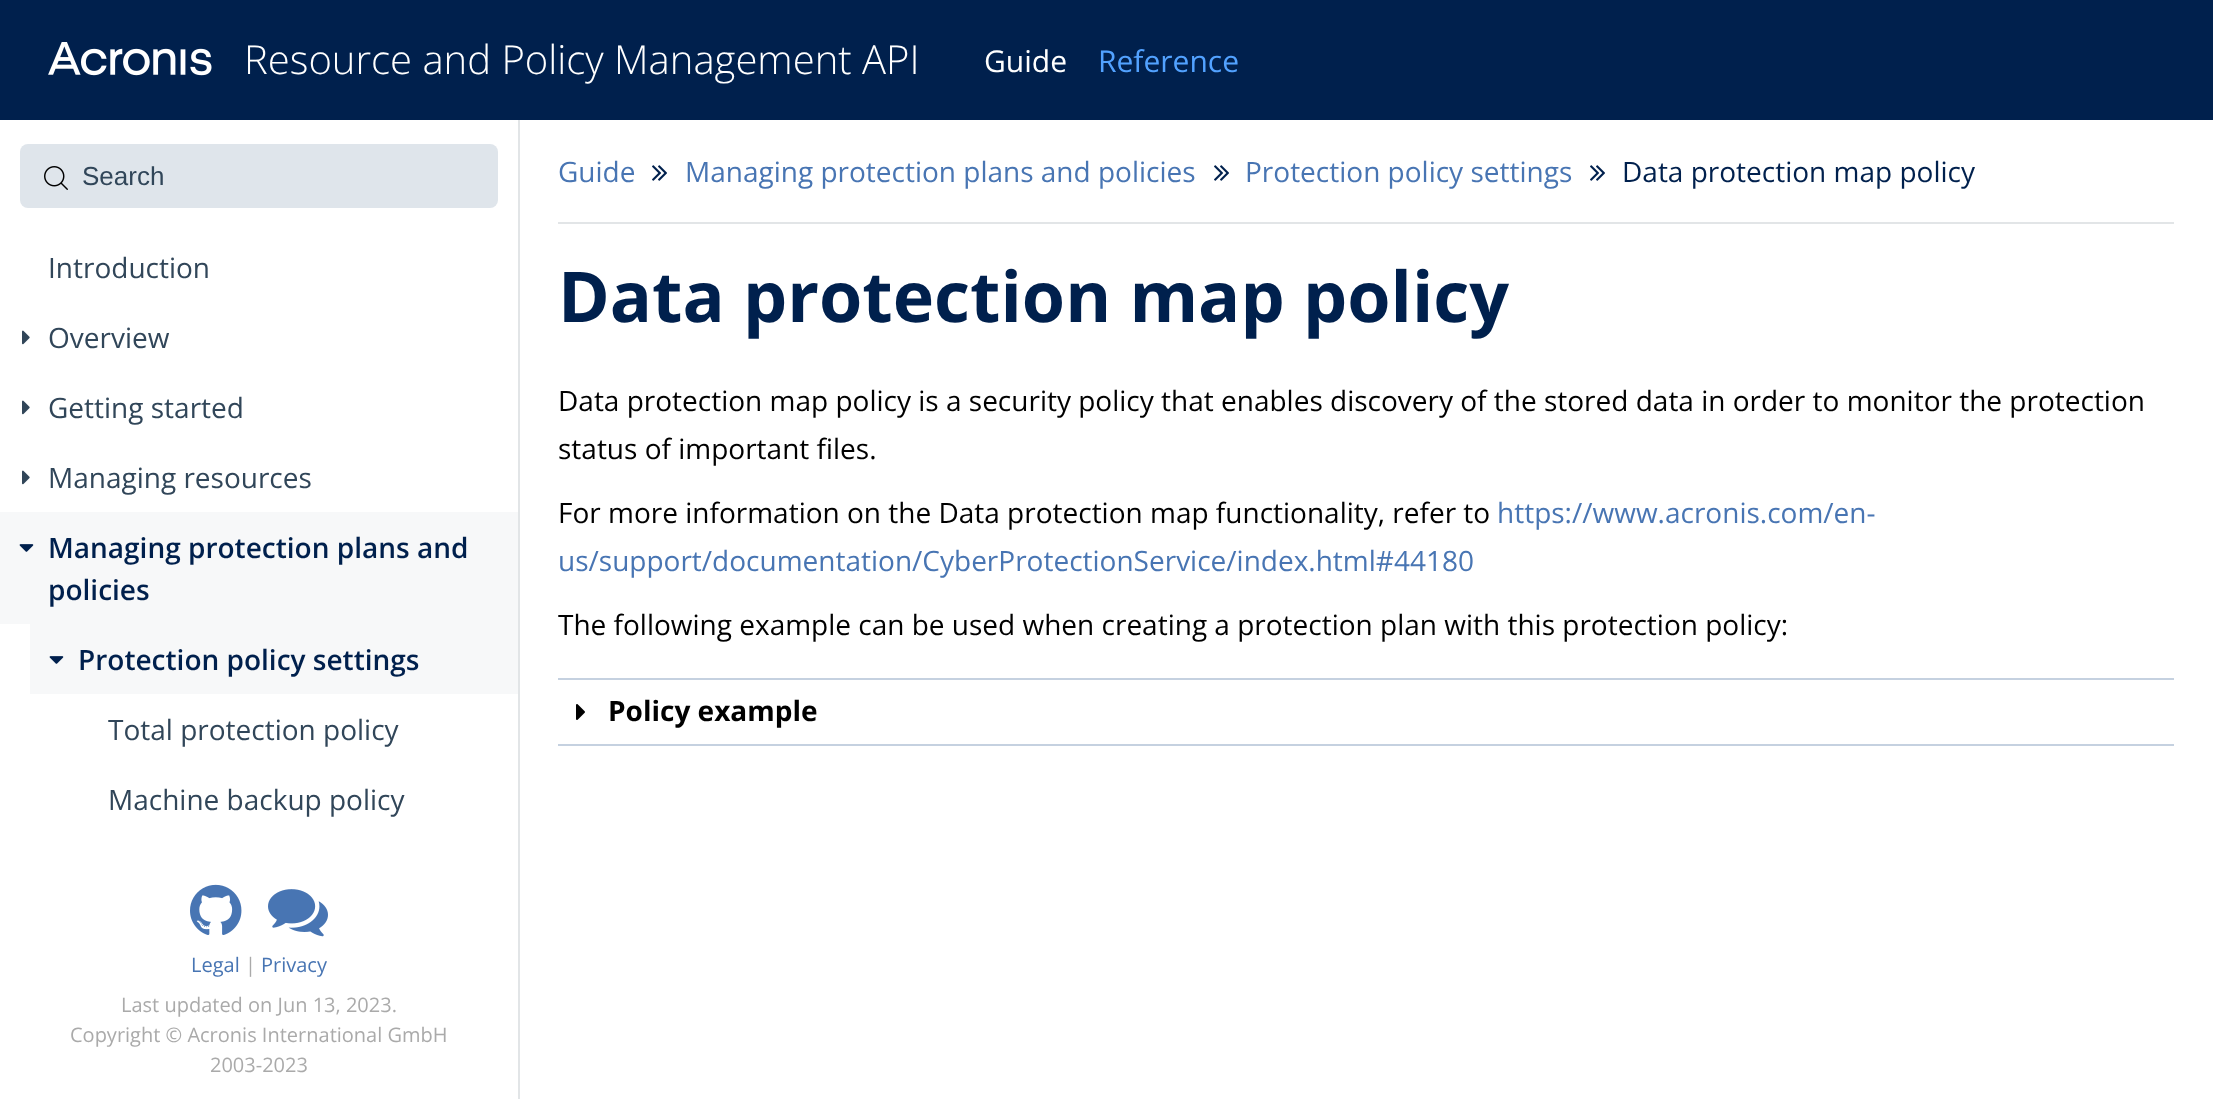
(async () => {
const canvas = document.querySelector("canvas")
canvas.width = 2213
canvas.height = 1099
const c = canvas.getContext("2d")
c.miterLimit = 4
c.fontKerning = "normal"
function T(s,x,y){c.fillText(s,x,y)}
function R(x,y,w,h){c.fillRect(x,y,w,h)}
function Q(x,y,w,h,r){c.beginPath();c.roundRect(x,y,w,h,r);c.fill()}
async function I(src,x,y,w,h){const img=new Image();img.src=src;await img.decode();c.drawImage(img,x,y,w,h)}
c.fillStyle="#fff"
R(0,0,2213,1099)
c.fillStyle="#00204d"
R(0,0,2213,120)
await I("1.png",48,42,164,34)
c.font="300 40px Open Sans"
c.fillStyle="#fff"
T("Resource and Policy Management API",244,74)
c.font="30px Open Sans"
T("Guide",984,72)
c.fillStyle="#52a2ff"
T("Reference",1098,72)
c.fillStyle="#e2e5e7"
R(518,120,2,979)
c.fillStyle="#dfe5eb"
Q(20,144,478,64,8)
await I("2.png",44,166,24,24)
c.font="26px Liberation Sans"
c.fillStyle="#314659"
T("Search",82,185)
c.font="28px Open Sans"
T("Introduction",48,278)
await I("3.png",22,330,8,15)
T("Overview",48,348)
await I("3.png",22,400,8,15)
T("Getting started",48,418)
await I("3.png",22,470,8,15)
T("Managing resources",48,488)
c.fillStyle="#f7f8f9"
R(0,512,518,112)
await I("4.png",19,544,15,8)
c.font="600 28px Open Sans"
c.fillStyle="#00204d"
T("Managing protection plans and",48,558)
T("policies",48,600)
c.fillStyle="#f7f8f9"
R(30,624,488,70)
await I("4.png",49,656,15,8)
c.fillStyle="#00204d"
T("Protection policy settings",78,670)
c.font="28px Open Sans"
c.fillStyle="#314659"
T("Total protection policy",108,740)
T("Machine backup policy",108,810)
await I("5.png",190,884,52,51)
await I("6.png",268,889,60,48)
c.font="20px Open Sans"
c.fillStyle="#4875b3"
T("Legal",191,972)
c.fillStyle="#aaa"
T("|",245,972)
c.fillStyle="#4875b3"
T("Privacy",261,972)
c.fillStyle="#aaa"
T("Last updated on Jun 13, 2023.",121,1012)
T("Copyright © Acronis International GmbH",70,1042)
T("2003-2023",210,1072)
c.fillStyle="#e2e5e7"
R(558,222,1616,2)
c.font="28px Open Sans"
c.fillStyle="#4875b3"
T("Guide",558,182)
await I("7.png",652,165,15,16)
T("Managing protection plans and policies",685,182)
await I("7.png",1214,165,15,16)
T("Protection policy settings",1245,182)
await I("7.png",1590,165,15,16)
c.fillStyle="#00204d"
T("Data protection map policy",1622,182)
c.font="bold 70px Open Sans"
T("Data protection map policy",558,322)
c.font="28px Open Sans"
c.fillStyle="#000"
T("Data protection map policy is a security policy that enables discovery of the stored data in order to monitor the protection",558,411)
T("status of important files.",558,459)
T("For more information on the Data protection map functionality, refer to",558,523)
c.fillStyle="#4875b3"
T("https://www.acronis.com/en-",1497,523)
T("us/support/documentation/CyberProtectionService/index.html#44180",558,571)
c.fillStyle="#000"
T("The following example can be used when creating a protection plan with this protection policy:",558,635)
c.fillStyle="#c5d1e0"
R(558,678,1616,2)
R(558,744,1616,2)
await I("8.png",576,704,9,16)
c.font="bold 28px Open Sans"
c.fillStyle="#000"
T("Policy example",608,721)
})()
